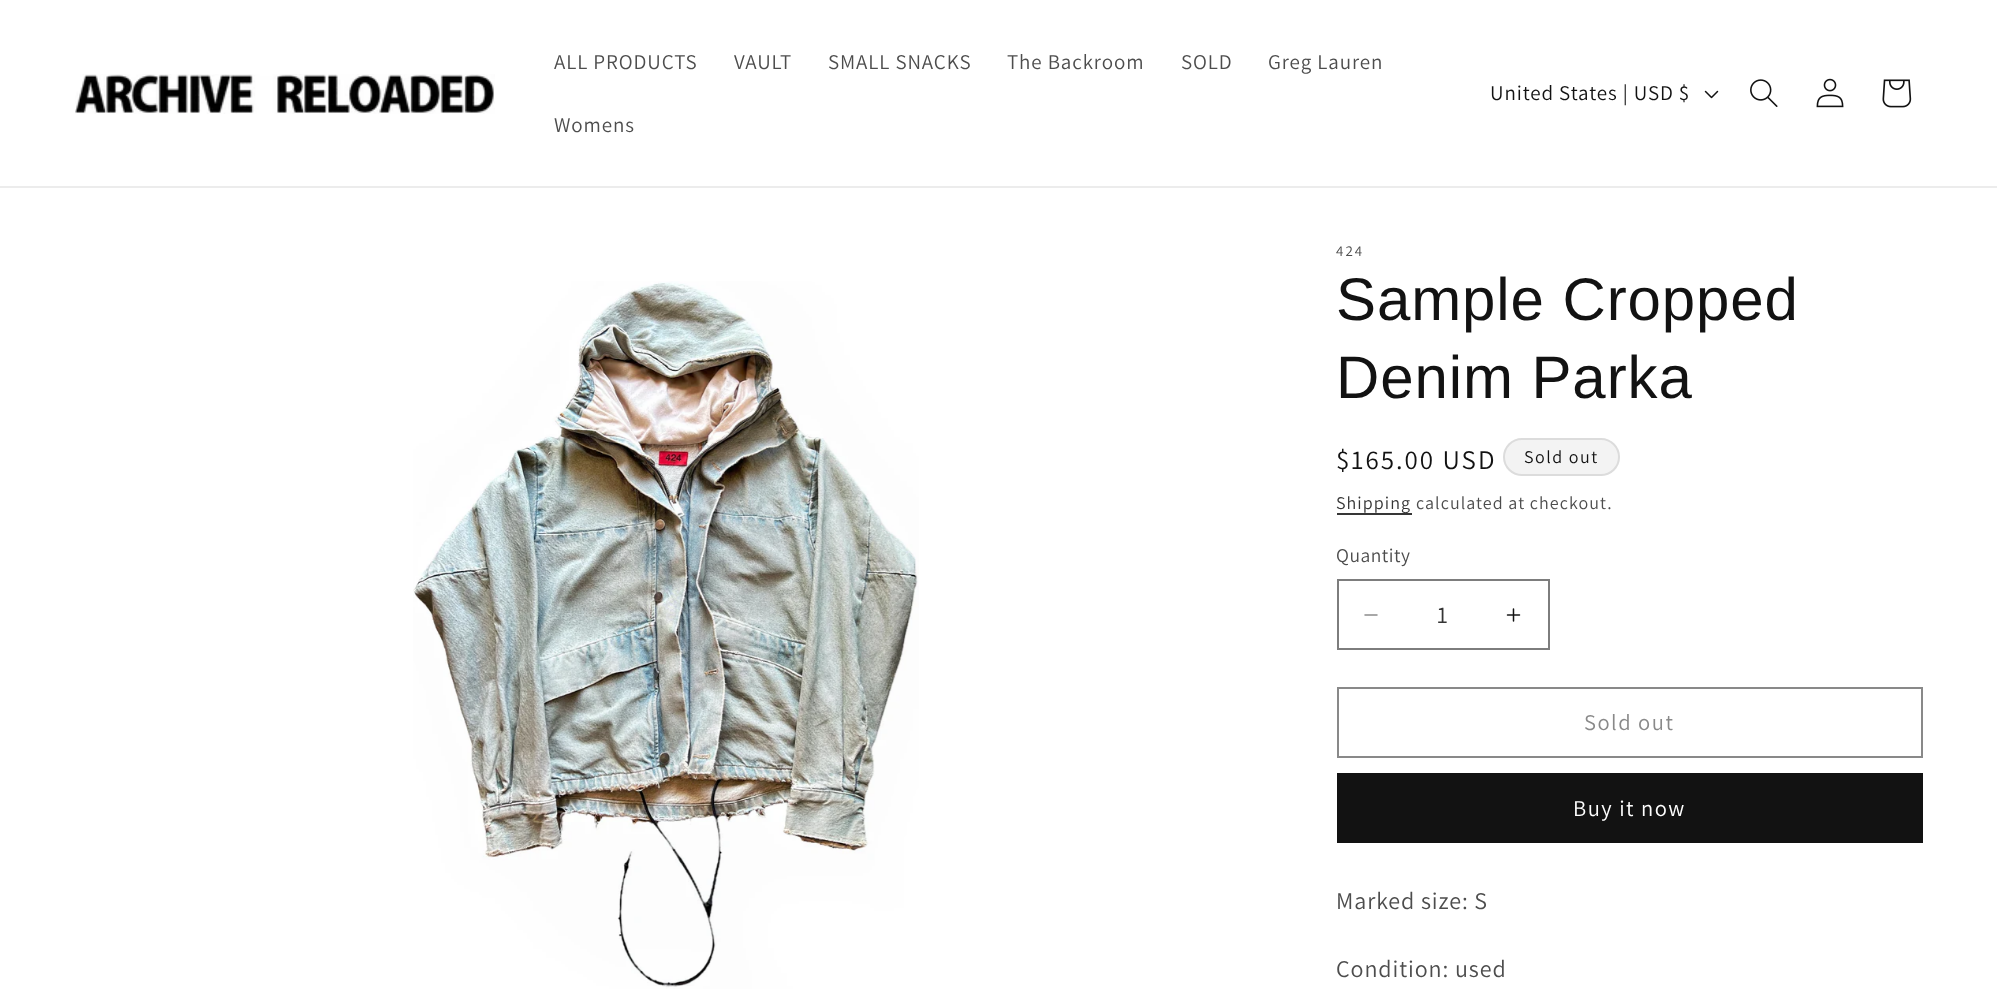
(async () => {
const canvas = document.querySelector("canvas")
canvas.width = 1997
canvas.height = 996
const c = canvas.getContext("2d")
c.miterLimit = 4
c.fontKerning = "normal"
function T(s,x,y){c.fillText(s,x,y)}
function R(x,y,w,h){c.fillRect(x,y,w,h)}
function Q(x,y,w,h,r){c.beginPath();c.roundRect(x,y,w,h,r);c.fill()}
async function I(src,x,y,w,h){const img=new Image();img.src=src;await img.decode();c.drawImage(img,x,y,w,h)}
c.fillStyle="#fff"
R(0,0,1997,996)
c.fillStyle="#ececec"
R(0,186,1997,2)
await I("1.png",75,74,420,40)
c.letterSpacing="0.9px"
c.font="21px Assistant"
c.fillStyle="#4d4d4d"
T("ALL PRODUCTS",554,69)
T("VAULT",734,69)
T("SMALL SNACKS",828,69)
T("The Backroom",1007,69)
T("SOLD",1181,69)
T("Greg Lauren",1268,69)
T("Womens",554,132)
c.fillStyle="#121212"
T("United States | USD $",1490,100)
await I("2.png",1704,90,15,9)
await I("3.png",1750,79,28,28)
await I("4.png",1816,78,28,30)
await I("5.png",1882,79,30,29)
await I("6.png",413,281,506,708)
c.letterSpacing="2px"
c.font="15px Assistant"
c.fillStyle="#4d4d4d"
T("424",1336,256)
c.letterSpacing="0.9px"
c.font="60px Arimo"
c.fillStyle="#121212"
T("Sample Cropped",1336,320)
T("Denim Parka",1336,398)
c.letterSpacing="2px"
c.font="27px Assistant"
T("$165.00 USD",1336,469)
c.fillStyle="#f3f3f3"
Q(1503,438,117,38,19)
c.beginPath()
c.roundRect(1504,439,115,36,18)
c.strokeStyle="#1212121a"
c.lineWidth=2
c.stroke()
c.letterSpacing="1.5px"
c.font="18px Assistant"
c.fillStyle="#121212"
T("Sold out",1524,463)
c.fillStyle="#363636"
R(1337,513,75,2)
c.letterSpacing="1.05px"
c.fillStyle="#353535"
T("Shipping",1336,509)
c.fillStyle="#4d4d4d"
T("calculated at checkout.",1416,509)
c.letterSpacing="0.5px"
c.font="19.5px Assistant"
T("Quantity",1336,562)
await I("7.png",1364,614,14,2)
await I("8.png",1506,608,15,14)
c.strokeStyle="#7d7d7d"
c.strokeRect(1338,580,211,69)
c.letterSpacing="0px"
c.font="24px Assistant"
c.fillStyle="#353535"
T("1",1437,623)
c.strokeStyle="#898989"
c.strokeRect(1338,688,584,69)
c.letterSpacing="1.5px"
c.font="22.5px Assistant"
c.fillStyle="#898989"
T("Sold out",1584,730)
c.fillStyle="#121212"
R(1337,773,586,70)
c.fillStyle="#fff"
T("Buy it now",1573,816)
c.letterSpacing="0.9px"
c.font="24px Assistant"
c.fillStyle="#4d4d4d"
T("Marked size: S",1336,909)
T("Condition: used",1336,977)
})()
